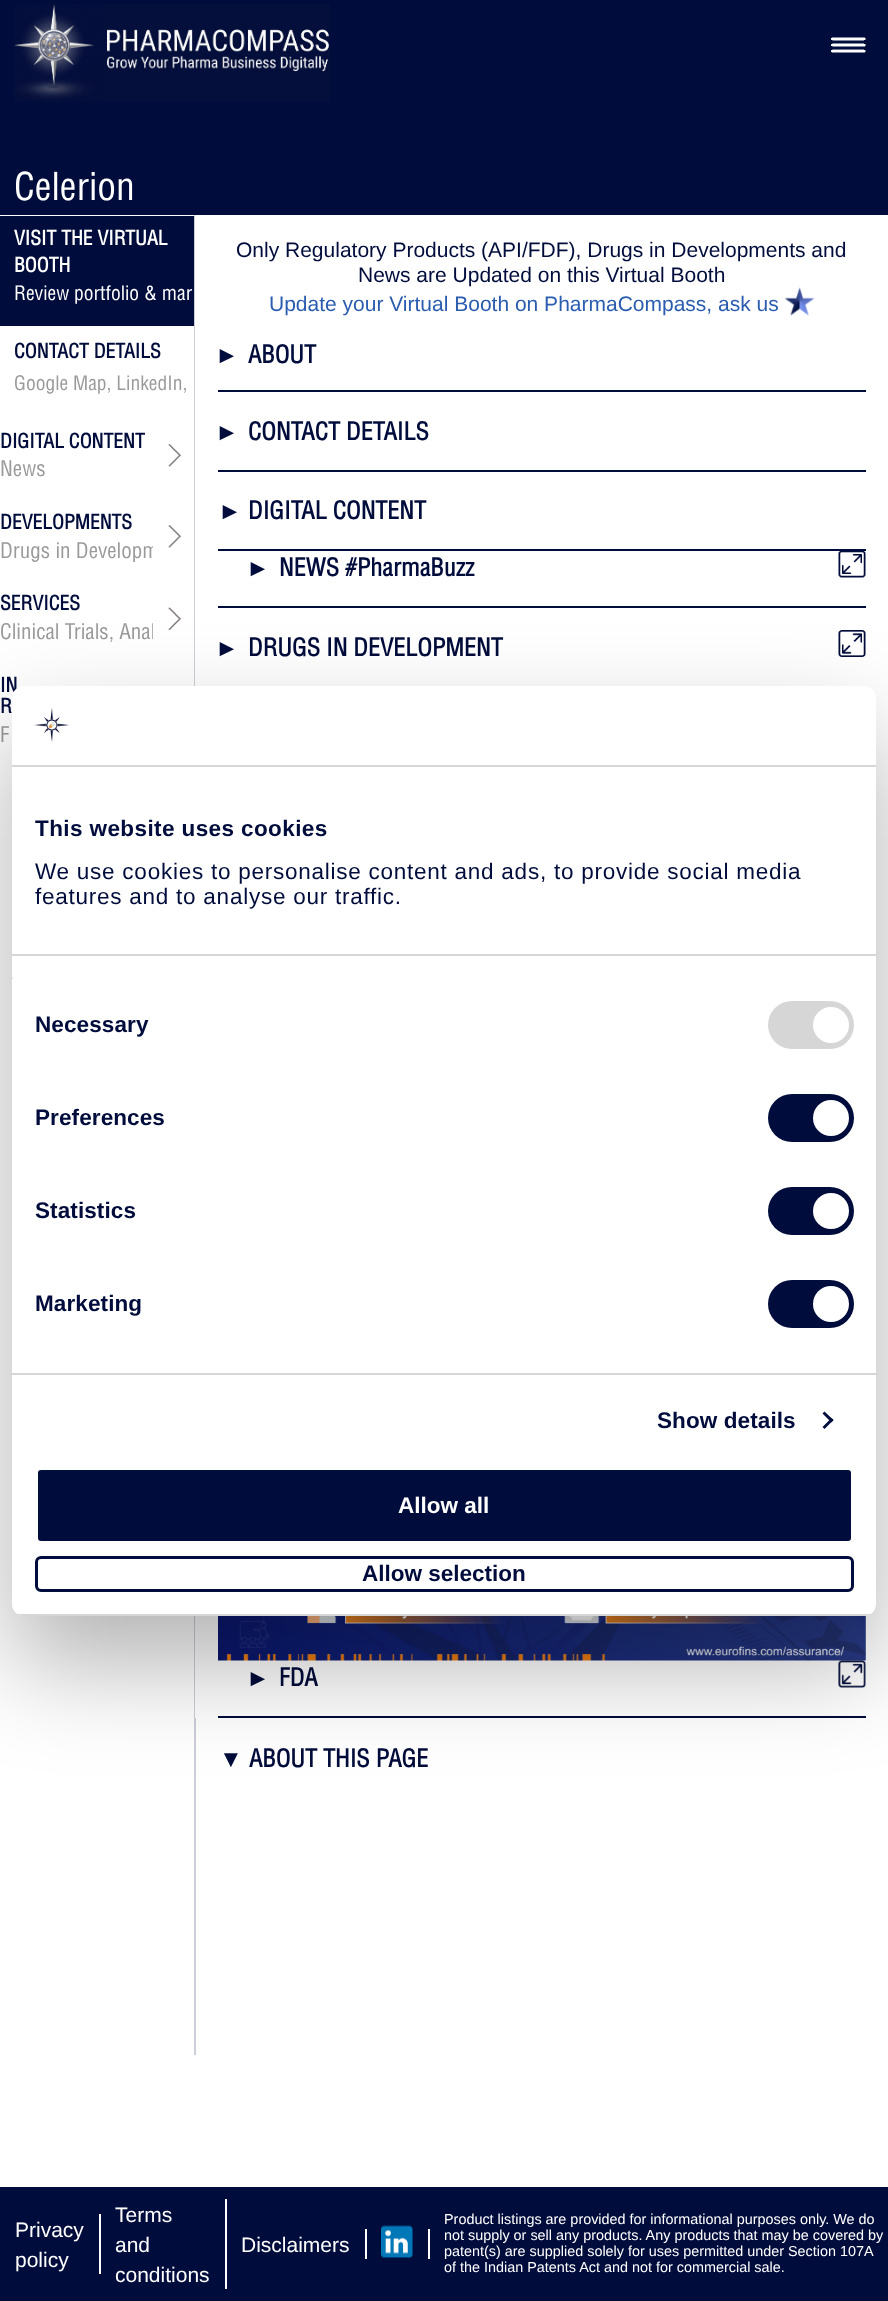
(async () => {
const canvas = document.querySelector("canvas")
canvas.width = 888
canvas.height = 2301
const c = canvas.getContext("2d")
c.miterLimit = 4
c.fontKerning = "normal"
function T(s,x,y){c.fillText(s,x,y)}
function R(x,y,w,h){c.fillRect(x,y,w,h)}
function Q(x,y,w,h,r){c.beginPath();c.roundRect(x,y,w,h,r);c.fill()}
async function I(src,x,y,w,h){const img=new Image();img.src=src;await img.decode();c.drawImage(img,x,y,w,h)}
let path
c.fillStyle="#000c3b"
R(0,0,888,2301)
await I("1.png",14,4,316,98)
await I("2.png",831,37,35,16)
c.font="500 37.5px Helvetica"
c.fillStyle="#fff"
T("Celerion",14,200)
R(0,215,888,1972)
c.fillStyle="#ccced8"
R(194,215,2,1840)
c.fillStyle="#000c3b"
R(0,216,194,110)
c.font="bold 19.5px Helvetica"
c.fillStyle="#fff"
T("VISIT THE VIRTUAL",14,245)
T("BOOTH",14,272)
c.font="500 19.5px Helvetica"
T("Review portfolio & mar",14,300)
c.font="bold 19.5px Helvetica"
c.fillStyle="#000c3b"
T("CONTACT DETAILS",14,358)
c.font="500 19.5px Helvetica"
c.fillStyle="#9a9a9a"
T("Google Map, LinkedIn,",14,390)
await I("3.png",168,444,13,23)
c.font="bold 19.5px Helvetica"
c.fillStyle="#000c3b"
T("DIGITAL CONTENT",0,448)
c.font="500 21px Helvetica"
c.fillStyle="#9a9a9a"
T("News",0,476)
await I("4.png",168,525,14,23)
c.font="bold 19.5px Helvetica"
c.fillStyle="#000c3b"
T("DEVELOPMENTS",0,529)
c.save()
c.beginPath()
c.rect(0,539,153,24)
c.clip()
c.font="500 21px Helvetica"
c.fillStyle="#9a9a9a"
T("Drugs in Developm",0,558)
c.restore()
await I("5.png",168,607,13,23)
T("SERVICES",0,610)
c.save()
c.beginPath()
c.rect(0,620,153,24)
c.clip()
c.font="500 21px Helvetica"
c.fillStyle="#9a9a9a"
T("Clinical Trials, Anal",0,639)
c.restore()
T("IN",0,692)
T("R",0,713)
c.font="500 21px Helvetica"
c.fillStyle="#9a9a9a"
T("F",0,742)
c.fillStyle="#fff"
R(195,215,1,1503)
c.fillStyle="#000c3b"
R(218,390,648,2)
c.font="21px Liberation Sans"
T("Only Regulatory Products (API/FDF), Drugs in Developments and",236,257)
T("News are Updated on this Virtual Booth",358,282)
c.fillStyle="#2a5db0"
T("Update your Virtual Booth on PharmaCompass, ask us",269,311)
await I("6.png",784,287,31,29)
c.font="bold 24px Liberation Serif"
c.fillStyle="#000c3b"
T("►",215,363)
c.font="bold 24px Helvetica"
T("ABOUT",248,363)
R(218,470,648,2)
c.font="bold 24px Liberation Serif"
T("►",215,440)
c.font="bold 24px Helvetica"
T("CONTACT DETAILS",248,440)
R(218,549,648,2)
c.font="bold 24px Liberation Serif"
T("►",218,519)
c.font="bold 24px Helvetica"
T("DIGITAL CONTENT",248,519)
R(218,606,648,2)
c.font="bold 24px Liberation Serif"
T("►",246,576)
c.font="bold 24px Helvetica"
T("NEWS #PharmaBuzz",279,576)
await I("7.png",838,551,28,27)
c.font="bold 24px Liberation Serif"
T("►",215,656)
c.font="bold 24px Helvetica"
T("DRUGS IN DEVELOPMENT",248,656)
await I("8.png",838,630,28,27)
await I("9.png",218,1615,648,46)
R(218,1716,648,2)
c.font="bold 24px Liberation Serif"
T("►",246,1686)
c.font="bold 24px Helvetica"
T("FDA",279,1686)
await I("10.png",838,1660,28,28)
c.font="bold 24px Liberation Serif"
T("▼",219,1767)
c.font="bold 24px Helvetica"
T("ABOUT THIS PAGE",249,1767)
c.fillStyle="#fff"
R(99,2214,2,60)
c.font="21px Liberation Sans"
T("Privacy",15,2237)
T("policy",15,2267)
R(225,2199,2,90)
T("Terms",115,2222)
T("and",115,2252)
T("conditions",115,2282)
R(365,2229,2,30)
T("Disclaimers",241,2252)
R(428,2229,2,30)
await I("11.png",381,2225,32,33)
c.font="14.4px Liberation Sans"
T("Product listings are provided for informational purposes only. We do",444,2224)
T("not supply or sell any products. Any products that may be covered by",444,2240)
T("patent(s) are supplied solely for uses permitted under Section 107A",444,2256)
T("of the Indian Patents Act and not for commercial sale.",444,2272)
c.fillStyle="#0000004d"
c.filter="blur(51px)"
c.beginPath()
c.roundRect(12,734,864,930,12)
c.fill()
c.filter="none"
c.fillStyle="#fff"
Q(12,686,864,930,12)
c.fillStyle="#d6d6d6"
R(12,765,864,2)
await I("12.png",34,708,35,34)
R(12,954,864,2)
c.letterSpacing="0.4px"
c.font="bold 22.5px Liberation Sans"
c.fillStyle="#000c3b"
T("This website uses cookies",35,836)
c.letterSpacing="0.75px"
c.font="22.5px Liberation Sans"
T("We use cookies to personalise content and ads, to provide social media",35,879)
T("features and to analyse our traffic.",35,904)
c.fillStyle="#d6d6d6"
R(12,1373,864,2)
c.fillStyle="#e5e5e5"
R(12,977,1,2)
c.letterSpacing="0.1px"
c.font="bold 22.5px Liberation Sans"
c.fillStyle="#000c3b"
T("Necessary",35,1032)
c.fillStyle="#d6d6d6"
Q(768,1001,86,48,24)
c.fillStyle="#fff"
c.beginPath()
c.arc(831,1025,18,0,7)
c.fill()
c.fillStyle="#000c3b"
T("Preferences",35,1125)
Q(768,1094,86,48,24)
c.fillStyle="#fff"
c.beginPath()
c.arc(831,1118,18,0,7)
c.fill()
c.fillStyle="#000c3b"
T("Statistics",35,1218)
Q(768,1187,86,48,24)
c.fillStyle="#fff"
c.beginPath()
c.arc(831,1211,18,0,7)
c.fill()
c.fillStyle="#000c3b"
T("Marketing",35,1311)
Q(768,1280,86,48,24)
c.fillStyle="#fff"
c.beginPath()
c.arc(831,1304,18,0,7)
c.fill()
c.fillStyle="#000c3b"
T("Show details",657,1428)
path = new Path2D("M824.5 1411.5l9 8.5l-2 2.5l-9-9z")
c.fill(path)
path = new Path2D("M831.5 1418l2 2l-9 9l-2-2z")
c.fill(path)
c.save()
c.beginPath()
c.roundRect(12,686,864,930,12)
c.clip()
c.fillStyle="#d6d6d6"
R(12,1614,864,2)
c.restore()
c.beginPath()
c.roundRect(36.5,1468.5,816,74,4.5)
c.fill()
c.strokeStyle="#fff"
c.lineWidth=3
c.stroke()
c.letterSpacing="0px"
c.fillStyle="#fff"
T("Allow all",398,1513)
c.beginPath()
c.roundRect(36.5,1557.5,816,33,4.5)
c.strokeStyle="#000c3b"
c.stroke()
c.fillStyle="#000c3b"
T("Allow selection",362,1581)
})()
